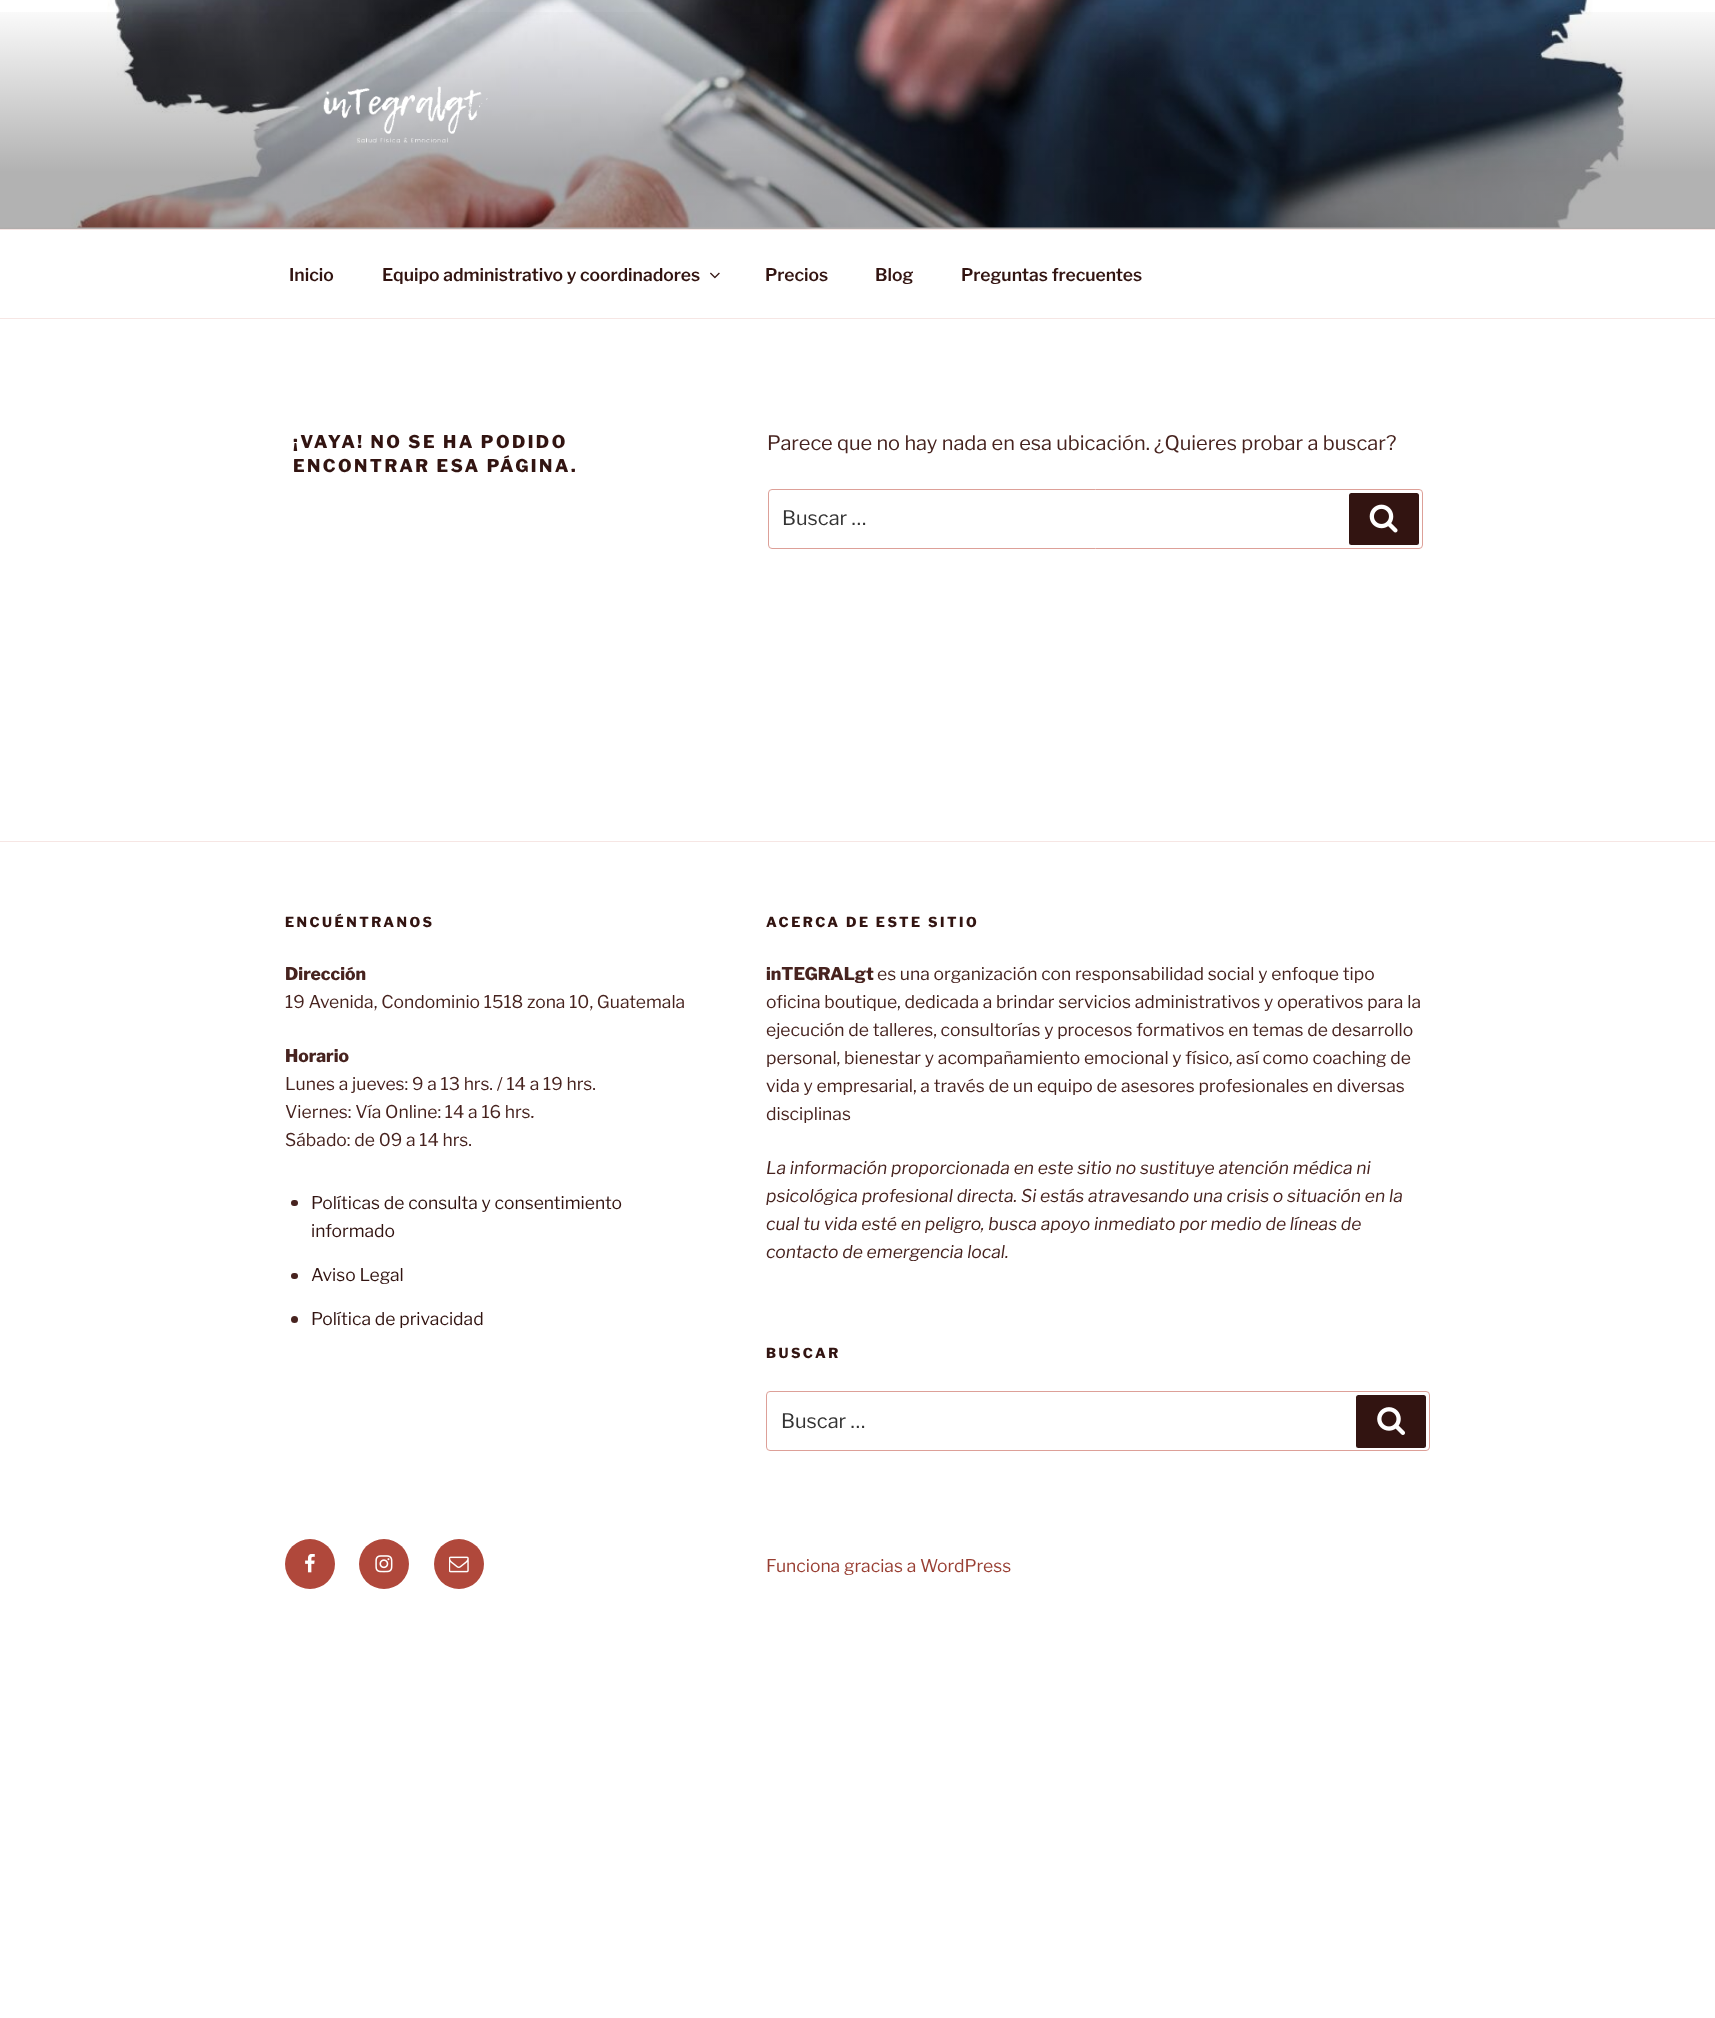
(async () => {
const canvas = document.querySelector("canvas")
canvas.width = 1715
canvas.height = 2018
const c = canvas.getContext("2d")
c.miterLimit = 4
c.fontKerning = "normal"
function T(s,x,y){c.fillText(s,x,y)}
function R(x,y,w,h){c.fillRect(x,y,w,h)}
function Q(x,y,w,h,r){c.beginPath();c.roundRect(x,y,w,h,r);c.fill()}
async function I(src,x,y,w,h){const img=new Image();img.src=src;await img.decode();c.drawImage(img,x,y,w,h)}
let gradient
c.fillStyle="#fff"
R(0,0,1715,2018)
c.fillStyle="#fcf8f7"
R(0,227,1715,2)
await I("1.png",0,0,1715,228)
gradient = c.createLinearGradient(858,0,858,229)
gradient.addColorStop(0,"#00000000")
gradient.addColorStop(.75,"#0000004d")
gradient.addColorStop(1,"#0000004d")
c.fillStyle = gradient
R(0,12,1715,217)
await I("2.png",323,86,165,57)
c.fillStyle="#f6e6e4"
R(0,229,1715,1)
R(0,318,1715,1)
c.font="100 17.5px 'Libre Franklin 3'"
c.fillStyle="#321411"
T("Inicio",289,281)
T("Equipo administrativo y coordinadores",382,281)
await I("3.png",710,272,10,7)
T("Precios",765,281)
T("Blog",875,281)
T("Preguntas frecuentes",961,281)
c.letterSpacing="2.45px"
c.font="100 17.5px Libre Franklin"
T("¡VAYA! NO SE HA PODIDO",293,448)
T("ENCONTRAR ESA PÁGINA.",293,472)
c.letterSpacing="0px"
c.font="100 20px 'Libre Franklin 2'"
c.fillStyle="#47231f"
T("Parece que no hay nada en esa ubicación. ¿Quieres probar a buscar?",767,450)
c.beginPath()
c.roundRect(768.5,489.5,654,59,3.5)
c.strokeStyle="#dda098"
c.stroke()
c.fillStyle="#333"
T("Buscar …",782,525)
c.fillStyle="#321411"
Q(1349,493,70,52,2.5)
await I("4.png",1369,504,29,29)
c.fillStyle="#f6e6e4"
R(0,841,1715,1)
c.letterSpacing="2.5px"
c.font="100 13.75px Libre Franklin"
c.fillStyle="#321411"
T("ENCUÉNTRANOS",285,927)
c.letterSpacing="0px"
c.font="100 17.5px Libre Franklin"
c.fillStyle="#47231f"
T("Dirección",285,980)
c.font="100 17.5px 'Libre Franklin 2'"
T("19 Avenida, Condominio 1518 zona 10, Guatemala",285,1008)
c.font="100 17.5px Libre Franklin"
T("Horario",285,1062)
c.font="100 17.5px 'Libre Franklin 2'"
T("Lunes a jueves: 9 a 13 hrs. / 14 a 19 hrs.",285,1090)
T("Viernes: Vía Online: 14 a 16 hrs.",285,1118)
T("Sábado: de 09 a 14 hrs.",285,1146)
Q(291,1200,7,6,3)
c.fillStyle="#321411"
T("Políticas de consulta y consentimiento",311,1209)
T("informado",311,1237)
c.fillStyle="#47231f"
Q(291,1273,7,6,3)
c.fillStyle="#321411"
T("Aviso Legal",311,1281)
c.fillStyle="#47231f"
c.beginPath()
c.arc(294.5,1319.5,3.5,0,7)
c.fill()
c.fillStyle="#321411"
T("Política de privacidad",311,1325)
c.letterSpacing="2.5px"
c.font="100 13.75px Libre Franklin"
T("ACERCA DE ESTE SITIO",766,927)
c.letterSpacing="0px"
c.font="100 17.5px Libre Franklin"
c.fillStyle="#47231f"
T("inTEGRALgt",766,980)
c.font="100 17.5px 'Libre Franklin 2'"
T("es una organización con responsabilidad social y enfoque tipo",877,980)
T("oficina boutique, dedicada a brindar servicios administrativos y operativos para la",766,1008)
T("ejecución de talleres, consultorías y procesos formativos en temas de desarrollo",766,1036)
T("personal, bienestar y acompañamiento emocional y físico, así como coaching de",766,1064)
T("vida y empresarial, a través de un equipo de asesores profesionales en diversas",766,1092)
T("disciplinas",766,1120)
c.font="italic 100 17.5px Libre Franklin"
T("La información proporcionada en este sitio no sustituye atención médica ni",766,1174)
T("psicológica profesional directa. Si estás atravesando una crisis o situación en la",766,1202)
T("cual tu vida esté en peligro, busca apoyo inmediato por medio de líneas de",766,1230)
T("contacto de emergencia local.",766,1258)
c.letterSpacing="2.5px"
c.font="100 13.75px Libre Franklin"
c.fillStyle="#321411"
T("BUSCAR",766,1358)
c.beginPath()
c.roundRect(766.5,1391.5,663,59,3.5)
c.stroke()
c.letterSpacing="0px"
c.font="100 20px 'Libre Franklin 2'"
c.fillStyle="#333"
T("Buscar …",781,1428)
c.fillStyle="#321411"
Q(1356,1395,70,53,2.5)
await I("5.png",1377,1407,28,28)
c.fillStyle="#b0483b"
c.beginPath()
c.arc(310,1564,25,0,7)
c.fill()
await I("6.png",305,1554,10,19)
c.beginPath()
c.arc(384,1564,25,0,7)
c.fill()
await I("7.png",375,1555,18,18)
c.beginPath()
c.arc(459,1564,25,0,7)
c.fill()
await I("8.png",449,1556,20,17)
c.font="100 17.5px 'Libre Franklin 2'"
c.fillStyle="#993f33"
T("Funciona gracias a WordPress",766,1572)
})()
